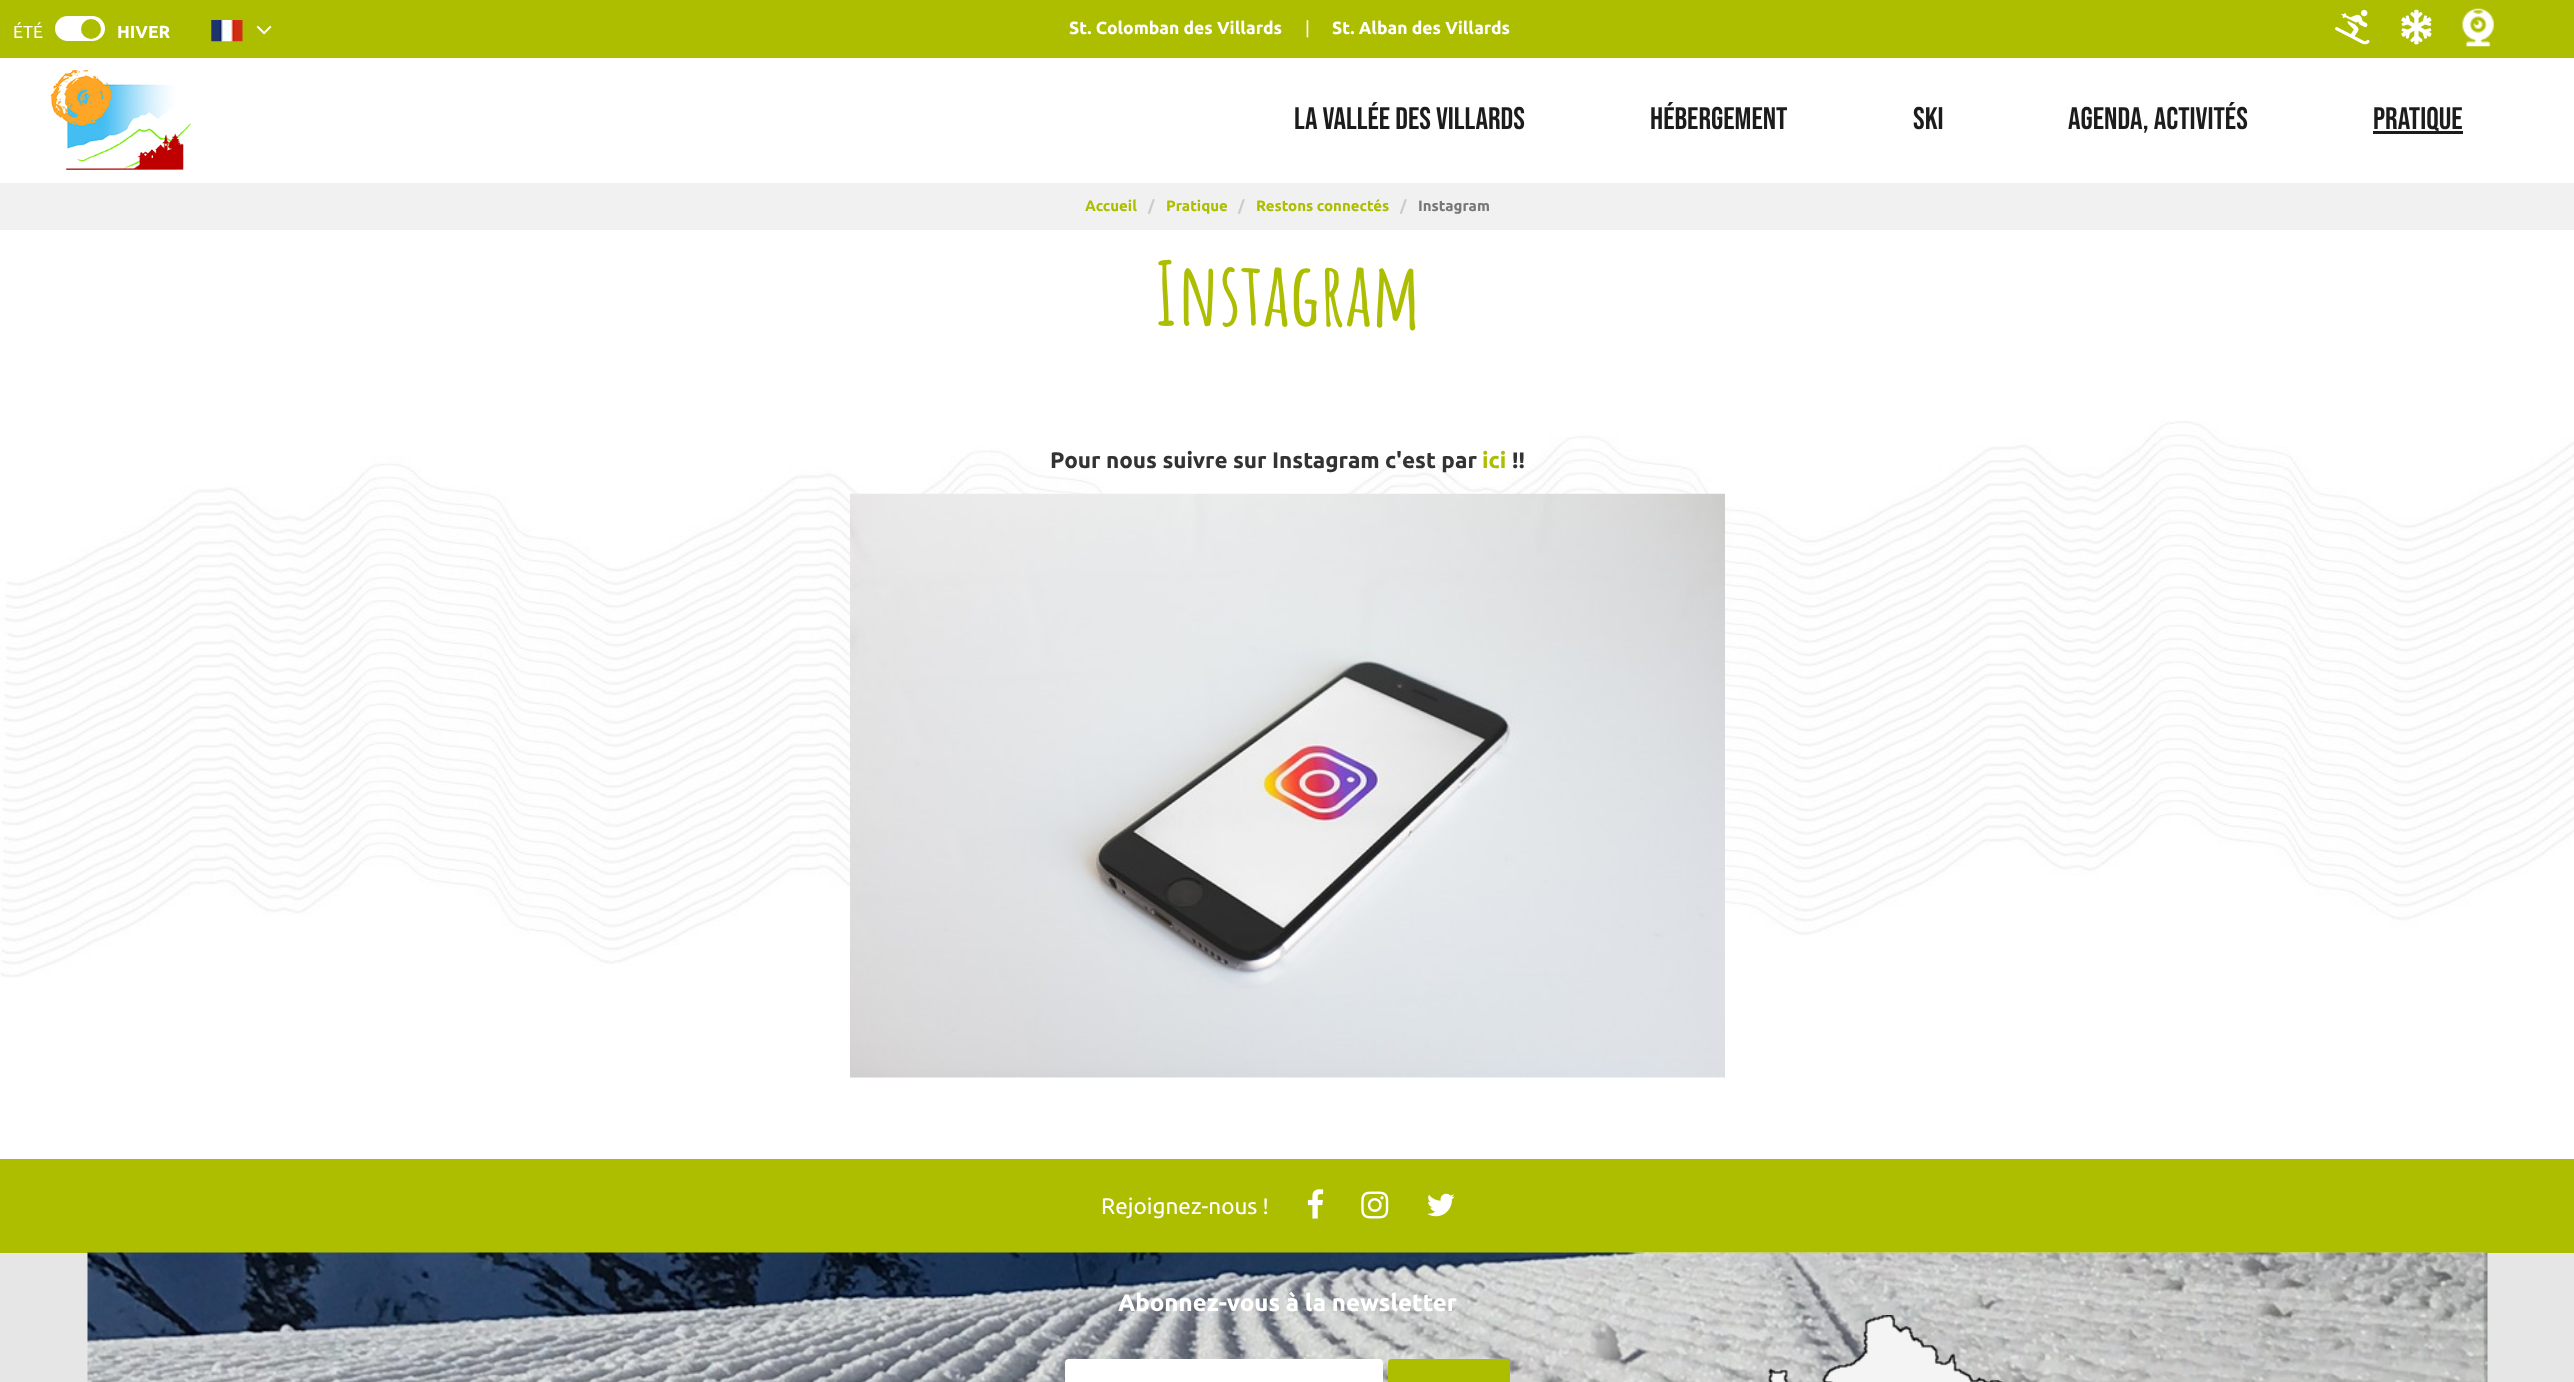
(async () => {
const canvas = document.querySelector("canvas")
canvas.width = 2574
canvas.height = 1382
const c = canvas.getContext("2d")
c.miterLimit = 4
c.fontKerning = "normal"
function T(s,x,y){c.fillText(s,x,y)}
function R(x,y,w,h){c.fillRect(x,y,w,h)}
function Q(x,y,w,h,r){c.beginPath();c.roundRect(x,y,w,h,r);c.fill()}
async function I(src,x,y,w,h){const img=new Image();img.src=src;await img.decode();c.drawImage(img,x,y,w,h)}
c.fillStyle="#fff"
R(0,0,2574,1382)
c.fillStyle="#e6e6e6"
R(0,1253,2574,129)
await I("1.png",0,420,2574,558)
c.fillStyle="#adbd00"
R(0,0,2574,58)
c.font="17.5px Ubuntu"
c.fillStyle="#fff"
T("ÉTÉ",13,38)
Q(55,16,50,25,12.5)
c.fillStyle="#adbd00"
c.beginPath()
c.arc(91,29,10,0,7)
c.fill()
c.font="bold 17.5px Ubuntu"
c.fillStyle="#fff"
T("HIVER",117,38)
await I("2.png",211,20,32,22)
await I("3.png",256,25,16,10)
T("St. Colomban des Villards",1069,34)
c.font="17.5px Ubuntu"
T("|",1305,34)
c.font="bold 17.5px Ubuntu"
T("St. Alban des Villards",1332,34)
await I("4.png",2335,9,35,36)
await I("5.png",2401,9,31,36)
await I("6.png",2462,8,32,39)
await I("7.png",50,70,141,100)
c.font="31.25px Bebas Neue"
c.fillStyle="#1c1c1c"
T("LA VALLÉE DES VILLARDS",1294,129)
T("HÉBERGEMENT",1650,129)
T("SKI",1913,129)
T("AGENDA, ACTIVITÉS",2068,129)
T("PRATIQUE",2373,129)
R(2373,131,90,3)
c.fillStyle="#f1f1f1"
R(0,183,2574,47)
c.font="bold 15px Ubuntu"
c.fillStyle="#adbd00"
T("Accueil",1085,211)
c.fillStyle="#ccc"
T("/",1148,211)
c.fillStyle="#adbd00"
T("Pratique",1166,211)
c.fillStyle="#ccc"
T("/",1238,211)
c.fillStyle="#adbd00"
T("Restons connectés",1256,211)
c.fillStyle="#ccc"
T("/",1400,211)
c.fillStyle="#777"
T("Instagram",1418,211)
c.font="bold 87.5px Amatic SC"
c.fillStyle="#adbd00"
T("Instagram",1155,326)
c.font="bold 22.5px Ubuntu"
c.fillStyle="#333"
T("Pour nous suivre sur Instagram c'est par",1050,468)
c.fillStyle="#adbd00"
T("ici",1482,468)
c.fillStyle="#333"
T("!!",1512,468)
await I("8.png",850,493,875,585)
c.fillStyle="#adbd00"
R(0,1159,2574,94)
c.font="22.5px Ubuntu"
c.fillStyle="#fff"
T("Rejoignez-nous !",1101,1214)
await I("9.png",1307,1189,17,30)
await I("10.png",1361,1191,28,28)
await I("11.png",1427,1193,28,24)
await I("12.png",87,1252,2401,130)
c.font="bold 24px Ubuntu"
T("Abonnez-vous à la newsletter",1118,1311)
Q(1065,1359,318,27,4)
c.fillStyle="#adbd00"
Q(1388,1359,122,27,4)
await I("13.png",1768,1315,235,67)
})()
